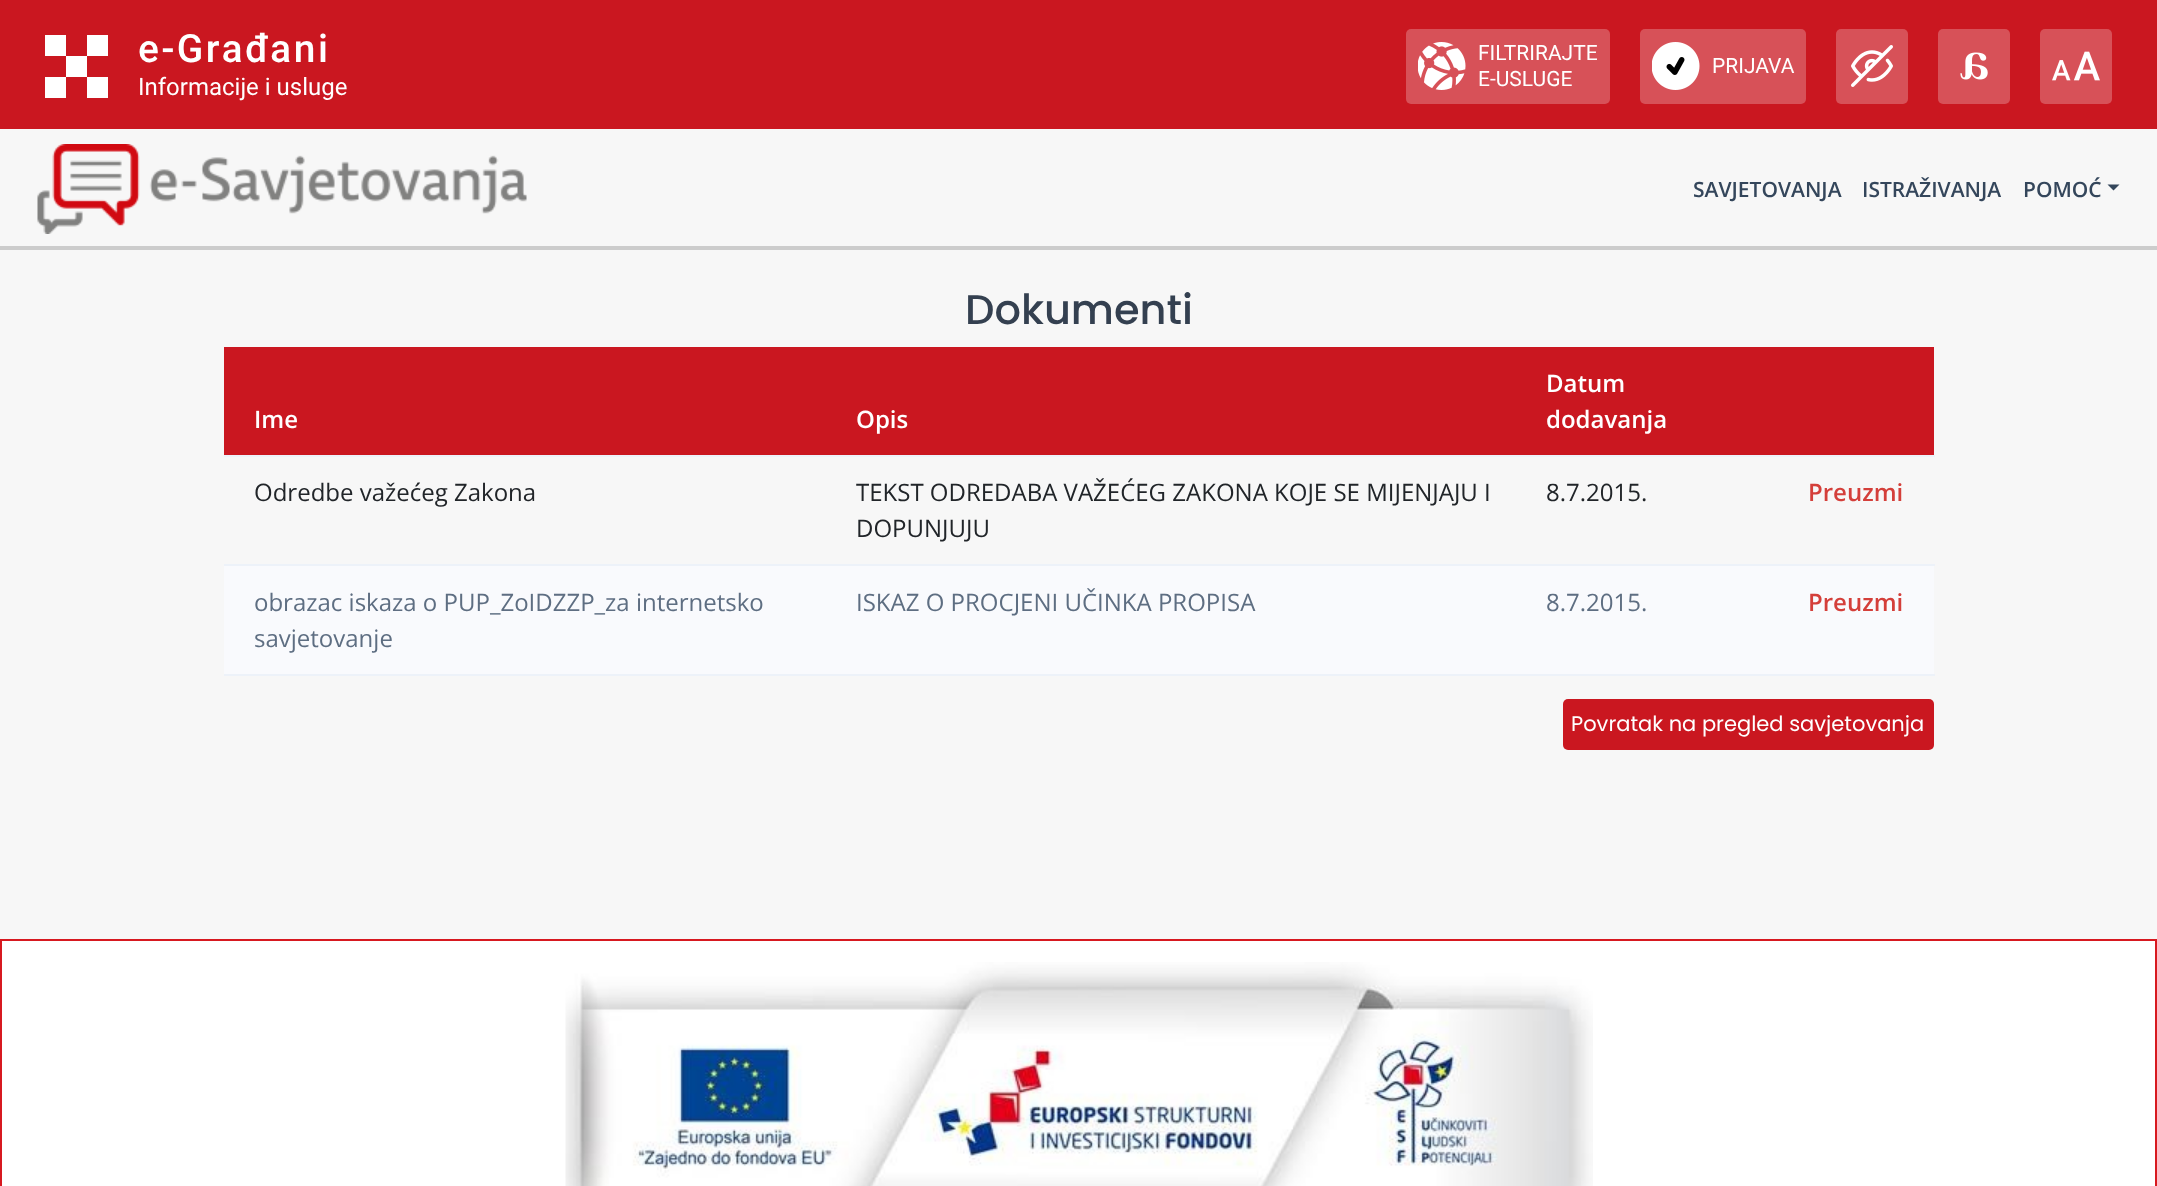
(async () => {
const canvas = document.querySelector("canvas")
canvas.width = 2157
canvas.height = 1186
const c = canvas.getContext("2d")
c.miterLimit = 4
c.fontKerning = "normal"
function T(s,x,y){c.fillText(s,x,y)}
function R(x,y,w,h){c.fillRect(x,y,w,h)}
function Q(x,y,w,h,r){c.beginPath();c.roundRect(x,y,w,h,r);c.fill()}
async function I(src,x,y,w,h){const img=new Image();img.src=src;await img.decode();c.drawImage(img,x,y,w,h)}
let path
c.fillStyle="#f7f7f7"
R(0,0,2157,1186)
c.fillStyle="#ccc"
R(0,246,2157,4)
c.fillStyle="#ca1720"
R(0,0,2157,129)
c.fillStyle="#fff"
R(45,35,21,21)
R(87,35,21,21)
R(45,77,21,21)
R(87,77,21,21)
R(66,56,21,21)
c.letterSpacing="2.5px"
c.font="500 39px Roboto"
T("e-Građani",138,62)
c.letterSpacing="0px"
c.font="24px Roboto"
T("Informacije i usluge",138,95)
c.fillStyle="#d75158"
Q(1406,29,204,75,5)
await I("1.png",1418,42,48,48)
c.font="21px Roboto"
c.fillStyle="#fff"
T("FILTRIRAJTE",1478,60)
T("E-USLUGE",1478,86)
c.fillStyle="#d75158"
Q(1640,29,166,75,5)
await I("2.png",1652,42,48,48)
c.fillStyle="#fff"
T("PRIJAVA",1712,73)
c.fillStyle="#d75158"
Q(1836,29,72,75,5)
await I("3.png",1851,45,42,42)
Q(1938,29,72,75,5)
await I("4.png",1960,52,28,28)
Q(2040,29,72,75,5)
await I("5.png",2052,51,48,30)
await I("6.png",37,144,490,90)
c.font="600 21px Open Sans"
c.fillStyle="#34465b"
T("SAVJETOVANJA",1693,197)
T("ISTRAŽIVANJA",1862,197)
T("POMOĆ",2023,197)
path = new Path2D("M2107.5 184.5h12l-6 6z")
c.fill(path)
c.font="500 41.5px Poppins"
c.fillStyle="#344050"
T("Dokumenti",965,324)
c.fillStyle="#ca1720"
R(224,347,1710,108)
c.font="600 24px Open Sans"
c.fillStyle="#fff"
T("Ime",254,428)
T("Opis",856,428)
T("Datum",1546,392)
T("dodavanja",1546,428)
c.fillStyle="#edf2f9"
R(224,455,1711,2)
c.font="24px Open Sans"
c.fillStyle="#212529"
T("Odredbe važećeg Zakona",254,501)
T("TEKST ODREDABA VAŽEĆEG ZAKONA KOJE SE MIJENJAJU I",856,501)
T("DOPUNJUJU",856,537)
T("8.7.2015.",1546,501)
c.fillStyle="#edf2f9"
R(224,564,1711,2)
c.font="600 24px Open Sans"
c.fillStyle="#d43f3a"
T("Preuzmi",1808,501)
c.fillStyle="#f9fafd"
R(224,566,1710,108)
c.font="24px Open Sans"
c.fillStyle="#5e6e82"
T("obrazac iskaza o PUP_ZoIDZZP_za internetsko",254,611)
T("savjetovanje",254,647)
T("ISKAZ O PROCJENI UČINKA PROPISA",856,611)
T("8.7.2015.",1546,611)
c.fillStyle="#edf2f9"
R(224,674,1711,2)
c.font="600 24px Open Sans"
c.fillStyle="#d43f3a"
T("Preuzmi",1808,611)
c.fillStyle="#ca1720"
Q(1563,699,371,51,5)
c.font="21px Poppins"
c.fillStyle="#fff"
T("Povratak na pregled savjetovanja",1571,731)
c.beginPath()
c.rect(1,940,2155,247)
c.fill()
c.strokeStyle="#d71920"
c.lineWidth=2
c.stroke()
await I("7.png",565,962,1028,224)
})()
